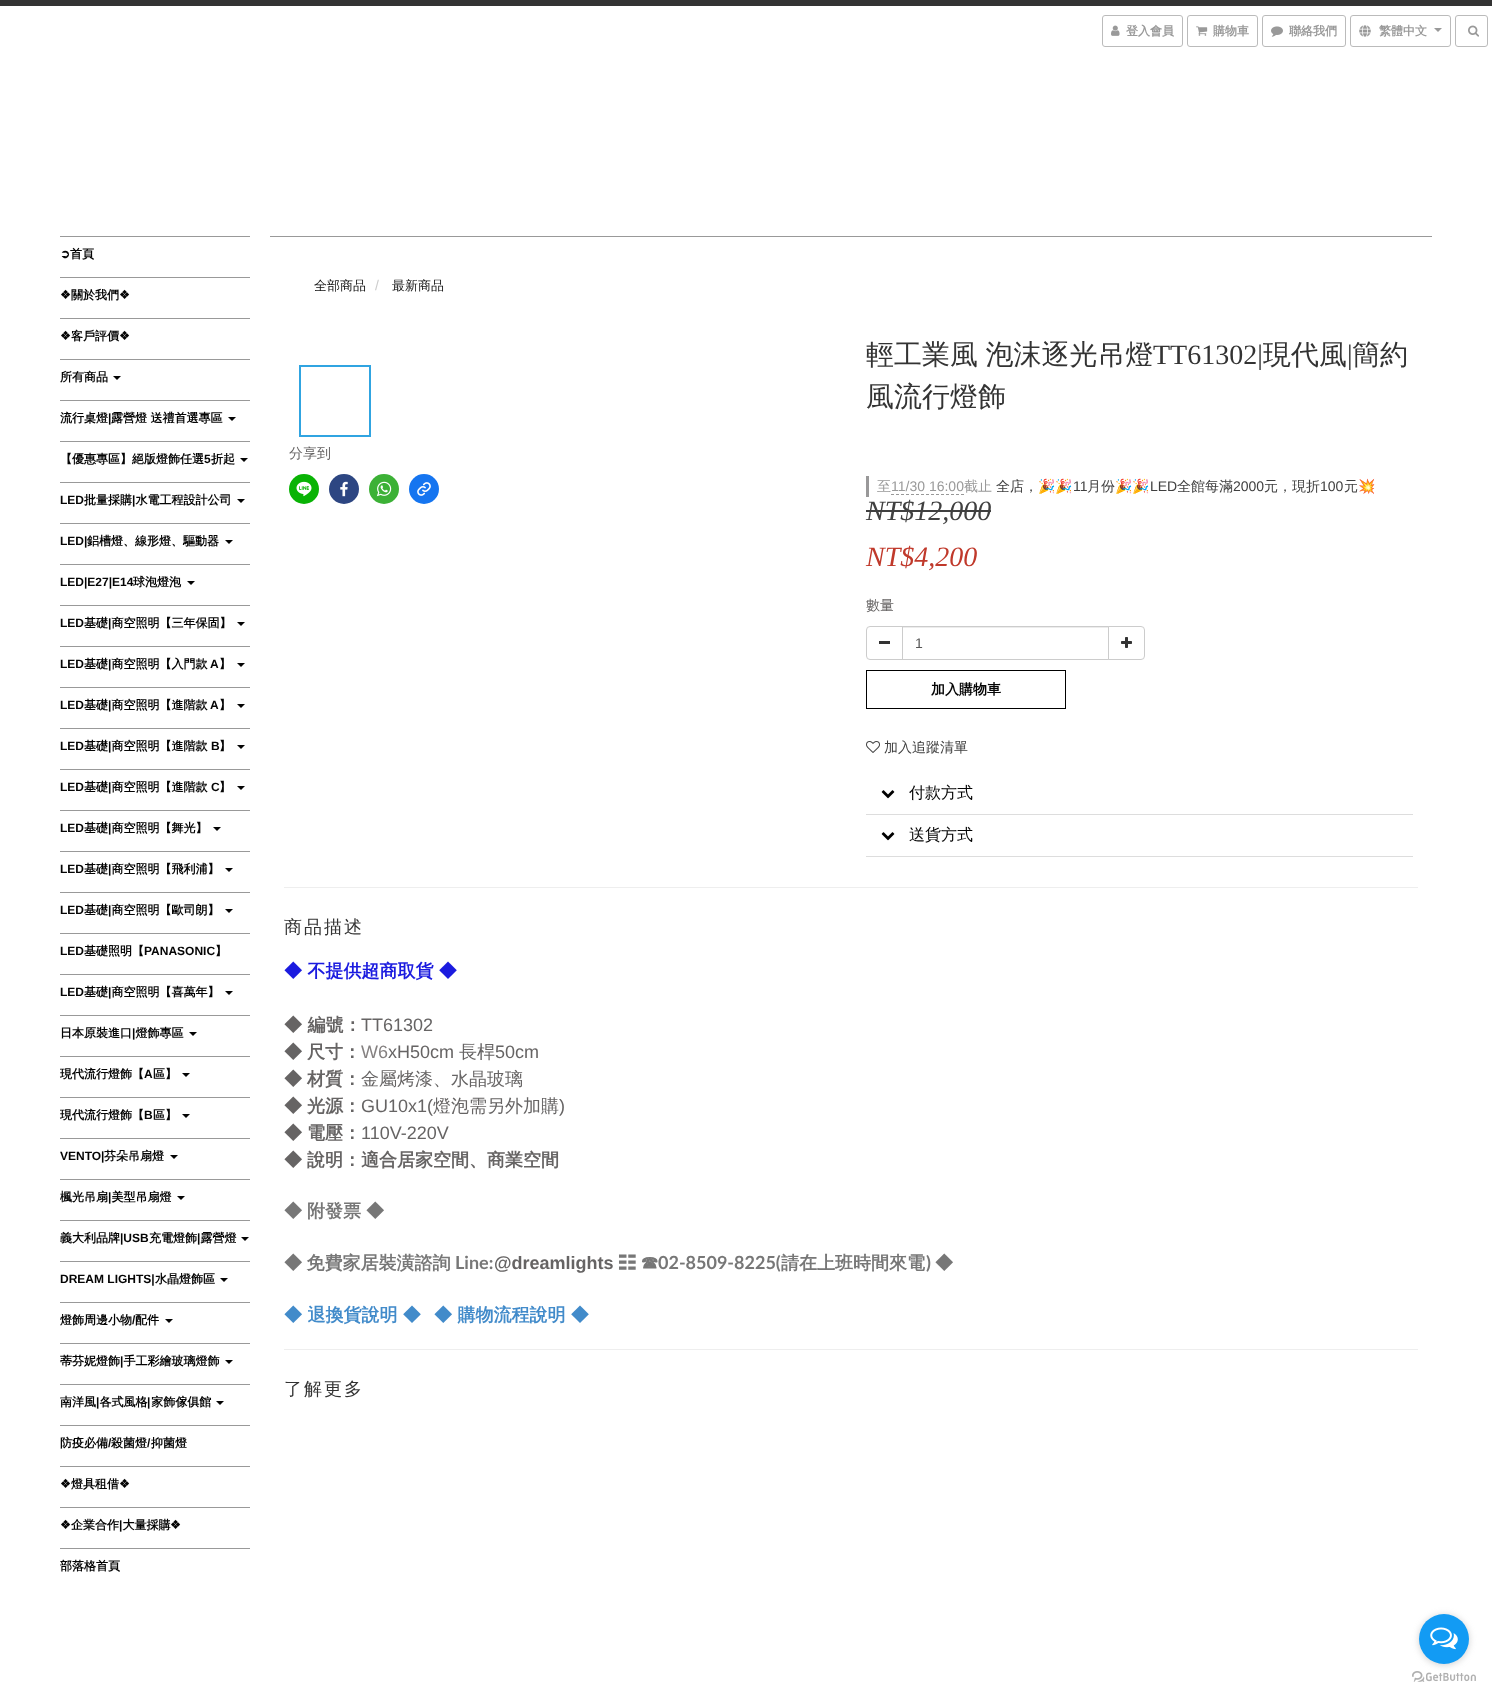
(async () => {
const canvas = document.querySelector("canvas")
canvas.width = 1492
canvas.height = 1698
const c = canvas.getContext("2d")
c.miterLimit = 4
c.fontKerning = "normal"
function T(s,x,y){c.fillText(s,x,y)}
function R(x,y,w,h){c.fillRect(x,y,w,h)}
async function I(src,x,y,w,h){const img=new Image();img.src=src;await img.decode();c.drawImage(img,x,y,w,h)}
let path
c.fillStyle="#fff"
R(0,0,1492,1698)
c.fillStyle="#333"
R(0,0,1492,6)
c.beginPath()
c.roundRect(1102.5,15.5,80,31,2.5)
c.strokeStyle="#bbb"
c.stroke()
await I("1.png",1111,25,9,11)
c.font="bold 12px WenQuanYi Zen Hei"
c.fillStyle="#999"
T("登入會員",1126,35)
c.beginPath()
c.roundRect(1187.5,15.5,70,31,2.5)
c.stroke()
await I("2.png",1196,26,12,10)
T("購物車",1213,35)
c.beginPath()
c.roundRect(1262.5,15.5,83,31,2.5)
c.stroke()
await I("3.png",1271,26,12,11)
T("聯絡我們",1289,35)
c.beginPath()
c.roundRect(1350.5,15.5,100,31,2.5)
c.stroke()
await I("4.png",1359,25,12,12)
T("繁體中文",1379,35)
path = new Path2D("M1434 28h8l-4 4z")
c.fill(path)
c.beginPath()
c.roundRect(1455.5,15.5,32,31,2.5)
c.stroke()
await I("5.png",1468,25,11,12)
R(60,236,190,1)
c.font="bold 12px DejaVu Sans"
c.fillStyle="#040404"
T("➲",60,258)
c.font="bold 12px WenQuanYi Zen Hei"
T("首頁",70,258)
c.fillStyle="#999"
R(60,277,190,1)
c.font="bold 12px DejaVu Sans"
c.fillStyle="#040404"
T("❖",60,299)
c.font="bold 12px WenQuanYi Zen Hei"
T("關於我們",71,299)
c.font="bold 12px DejaVu Sans"
T("❖",119,299)
c.fillStyle="#999"
R(60,318,190,1)
c.fillStyle="#040404"
T("❖",60,340)
c.font="bold 12px WenQuanYi Zen Hei"
T("客戶評價",71,340)
c.font="bold 12px DejaVu Sans"
T("❖",119,340)
c.fillStyle="#999"
R(60,359,190,1)
c.font="bold 12px WenQuanYi Zen Hei"
c.fillStyle="#040404"
T("所有商品",60,381)
path = new Path2D("M113 376h8l-4 4z")
c.fill(path)
c.fillStyle="#999"
R(60,400,190,1)
c.fillStyle="#040404"
T("流行桌燈",60,422)
c.font="bold 12px Liberation Sans"
T("|",108,422)
c.font="bold 12px WenQuanYi Zen Hei"
T("露營燈 送禮首選專區",111,422)
path = new Path2D("M228 417h8l-4 4z")
c.fill(path)
c.fillStyle="#999"
R(60,441,190,1)
c.fillStyle="#040404"
T("【優惠專區】絕版燈飾任選",60,463)
c.font="bold 12px Liberation Sans"
T("5",204,463)
c.font="bold 12px WenQuanYi Zen Hei"
T("折起",211,463)
path = new Path2D("M240 458h8l-4 4z")
c.fill(path)
c.fillStyle="#999"
R(60,482,190,1)
c.font="bold 12px Liberation Sans"
c.fillStyle="#040404"
T("LED",60,504)
c.font="bold 12px WenQuanYi Zen Hei"
T("批量採購 水電工程設計公司",84,504)
c.font="bold 12px Liberation Sans"
T("|",132,504)
path = new Path2D("M237 499h8l-4 4z")
c.fill(path)
c.fillStyle="#999"
R(60,523,190,1)
c.fillStyle="#040404"
T("LED|",60,545)
c.font="bold 12px WenQuanYi Zen Hei"
T("鋁槽燈、線形燈、驅動器",87,545)
path = new Path2D("M225 540h8l-4 4z")
c.fill(path)
c.fillStyle="#999"
R(60,564,190,1)
c.font="bold 12px Liberation Sans"
c.fillStyle="#040404"
T("LED|E27|E14",60,586)
c.font="bold 12px WenQuanYi Zen Hei"
T("球泡燈泡",133,586)
path = new Path2D("M187 581h8l-4 4z")
c.fill(path)
c.fillStyle="#999"
R(60,605,190,1)
c.font="bold 12px Liberation Sans"
c.fillStyle="#040404"
T("LED",60,627)
c.font="bold 12px WenQuanYi Zen Hei"
T("基礎 商空照明【三年保固】",84,627)
c.font="bold 12px Liberation Sans"
T("|",108,627)
path = new Path2D("M237 622h8l-4 4z")
c.fill(path)
c.fillStyle="#999"
R(60,646,190,1)
c.fillStyle="#040404"
T("LED",60,668)
c.font="bold 12px WenQuanYi Zen Hei"
T("基礎 商空照明【入門款",84,668)
T("】",219,668)
c.font="bold 12px Liberation Sans"
T("|",108,668)
T("A",210,668)
path = new Path2D("M237 663h8l-4 4z")
c.fill(path)
c.fillStyle="#999"
R(60,687,190,1)
c.fillStyle="#040404"
T("LED",60,709)
c.font="bold 12px WenQuanYi Zen Hei"
T("基礎 商空照明【進階款",84,709)
T("】",219,709)
c.font="bold 12px Liberation Sans"
T("|",108,709)
T("A",210,709)
path = new Path2D("M237 704h8l-4 4z")
c.fill(path)
c.fillStyle="#999"
R(60,728,190,1)
c.fillStyle="#040404"
T("LED",60,750)
c.font="bold 12px WenQuanYi Zen Hei"
T("基礎 商空照明【進階款",84,750)
T("】",219,750)
c.font="bold 12px Liberation Sans"
T("|",108,750)
T("B",211,750)
path = new Path2D("M237 745h8l-4 4z")
c.fill(path)
c.fillStyle="#999"
R(60,769,190,1)
c.fillStyle="#040404"
T("LED",60,791)
c.font="bold 12px WenQuanYi Zen Hei"
T("基礎 商空照明【進階款",84,791)
T("】",219,791)
c.font="bold 12px Liberation Sans"
T("|",108,791)
T("C",211,791)
path = new Path2D("M237 786h8l-4 4z")
c.fill(path)
c.fillStyle="#999"
R(60,810,190,1)
c.fillStyle="#040404"
T("LED",60,832)
c.font="bold 12px WenQuanYi Zen Hei"
T("基礎 商空照明【舞光】",84,832)
c.font="bold 12px Liberation Sans"
T("|",108,832)
path = new Path2D("M213 827h8l-4 4z")
c.fill(path)
c.fillStyle="#999"
R(60,851,190,1)
c.fillStyle="#040404"
T("LED",60,873)
c.font="bold 12px WenQuanYi Zen Hei"
T("基礎 商空照明【飛利浦】",84,873)
c.font="bold 12px Liberation Sans"
T("|",108,873)
path = new Path2D("M225 868h8l-4 4z")
c.fill(path)
c.fillStyle="#999"
R(60,892,190,1)
c.fillStyle="#040404"
T("LED",60,914)
c.font="bold 12px WenQuanYi Zen Hei"
T("基礎 商空照明【歐司朗】",84,914)
c.font="bold 12px Liberation Sans"
T("|",108,914)
path = new Path2D("M225 909h8l-4 4z")
c.fill(path)
c.fillStyle="#999"
R(60,933,190,1)
c.fillStyle="#040404"
T("LED",60,955)
c.font="bold 12px WenQuanYi Zen Hei"
T("基礎照明【",84,955)
c.font="bold 12px Liberation Sans"
T("PANASONIC",144,955)
c.font="bold 12px WenQuanYi Zen Hei"
T("】",215,955)
c.fillStyle="#999"
R(60,974,190,1)
c.font="bold 12px Liberation Sans"
c.fillStyle="#040404"
T("LED",60,996)
c.font="bold 12px WenQuanYi Zen Hei"
T("基礎 商空照明【喜萬年】",84,996)
c.font="bold 12px Liberation Sans"
T("|",108,996)
path = new Path2D("M225 991h8l-4 4z")
c.fill(path)
c.fillStyle="#999"
R(60,1015,190,1)
c.font="bold 12px WenQuanYi Zen Hei"
c.fillStyle="#040404"
T("日本原裝進口 燈飾專區",60,1037)
c.font="bold 12px Liberation Sans"
T("|",132,1037)
path = new Path2D("M189 1032h8l-4 4z")
c.fill(path)
c.fillStyle="#999"
R(60,1056,190,1)
c.font="bold 12px WenQuanYi Zen Hei"
c.fillStyle="#040404"
T("現代流行燈飾【",60,1078)
c.font="bold 12px Liberation Sans"
T("A",144,1078)
c.font="bold 12px WenQuanYi Zen Hei"
T("區】",153,1078)
path = new Path2D("M182 1073h8l-4 4z")
c.fill(path)
c.fillStyle="#999"
R(60,1097,190,1)
c.fillStyle="#040404"
T("現代流行燈飾【",60,1119)
c.font="bold 12px Liberation Sans"
T("B",144,1119)
c.font="bold 12px WenQuanYi Zen Hei"
T("區】",153,1119)
path = new Path2D("M182 1114h8l-4 4z")
c.fill(path)
c.fillStyle="#999"
R(60,1138,190,1)
c.font="bold 12px Liberation Sans"
c.fillStyle="#040404"
T("VENTO|",60,1160)
c.font="bold 12px WenQuanYi Zen Hei"
T("芬朵吊扇燈",104,1160)
path = new Path2D("M170 1155h8l-4 4z")
c.fill(path)
c.fillStyle="#999"
R(60,1179,190,1)
c.fillStyle="#040404"
T("楓光吊扇 美型吊扇燈",60,1201)
c.font="bold 12px Liberation Sans"
T("|",108,1201)
path = new Path2D("M177 1196h8l-4 4z")
c.fill(path)
c.fillStyle="#999"
R(60,1220,190,1)
c.font="bold 12px WenQuanYi Zen Hei"
c.fillStyle="#040404"
T("義大利品牌",60,1242)
c.font="bold 12px Liberation Sans"
T("|USB",120,1242)
c.font="bold 12px WenQuanYi Zen Hei"
T("充電燈飾 露營燈",149,1242)
c.font="bold 12px Liberation Sans"
T("|",197,1242)
path = new Path2D("M241 1237h8l-4 4z")
c.fill(path)
c.fillStyle="#999"
R(60,1261,190,1)
c.fillStyle="#040404"
T("DREAM LIGHTS|",60,1283)
c.font="bold 12px WenQuanYi Zen Hei"
T("水晶燈飾區",155,1283)
path = new Path2D("M220 1278h8l-4 4z")
c.fill(path)
c.fillStyle="#999"
R(60,1302,190,1)
c.fillStyle="#040404"
T("燈飾周邊小物",60,1324)
c.font="bold 12px Liberation Sans"
T("/",132,1324)
c.font="bold 12px WenQuanYi Zen Hei"
T("配件",135,1324)
path = new Path2D("M165 1319h8l-4 4z")
c.fill(path)
c.fillStyle="#999"
R(60,1343,190,1)
c.fillStyle="#040404"
T("蒂芬妮燈飾 手工彩繪玻璃燈飾",60,1365)
c.font="bold 12px Liberation Sans"
T("|",120,1365)
path = new Path2D("M225 1360h8l-4 4z")
c.fill(path)
c.fillStyle="#999"
R(60,1384,190,1)
c.font="bold 12px WenQuanYi Zen Hei"
c.fillStyle="#040404"
T("南洋風 各式風格 家飾傢俱館",60,1406)
c.font="bold 12px Liberation Sans"
T("|",96,1406)
T("|",147,1406)
path = new Path2D("M216 1401h8l-4 4z")
c.fill(path)
c.fillStyle="#999"
R(60,1425,190,1)
c.font="bold 12px WenQuanYi Zen Hei"
c.fillStyle="#040404"
T("防疫必備",60,1447)
c.font="bold 12px Liberation Sans"
T("/",108,1447)
c.font="bold 12px WenQuanYi Zen Hei"
T("殺菌燈",111,1447)
c.font="bold 12px Liberation Sans"
T("/",147,1447)
c.font="bold 12px WenQuanYi Zen Hei"
T("抑菌燈",151,1447)
c.fillStyle="#999"
R(60,1466,190,1)
c.font="bold 12px DejaVu Sans"
c.fillStyle="#040404"
T("❖",60,1488)
c.font="bold 12px WenQuanYi Zen Hei"
T("燈具租借",71,1488)
c.font="bold 12px DejaVu Sans"
T("❖",119,1488)
c.fillStyle="#999"
R(60,1507,190,1)
c.fillStyle="#040404"
T("❖",60,1529)
c.font="bold 12px WenQuanYi Zen Hei"
T("企業合作 大量採購",71,1529)
c.font="bold 12px Liberation Sans"
T("|",119,1529)
c.font="bold 12px DejaVu Sans"
T("❖",170,1529)
c.fillStyle="#999"
R(60,1548,190,1)
c.font="bold 12px WenQuanYi Zen Hei"
c.fillStyle="#040404"
T("部落格首頁",60,1570)
c.fillStyle="#999"
R(270,236,1162,1)
c.font="500 13px WenQuanYi Zen Hei"
c.fillStyle="#111"
T("全部商品",314,290)
c.font="14px Liberation Sans"
c.fillStyle="#ccc"
T("/",375,290)
c.font="500 13px WenQuanYi Zen Hei"
c.fillStyle="#111"
T("最新商品",392,290)
c.strokeStyle="#30a4e1"
c.lineWidth=2
c.strokeRect(300,366,70,70)
c.font="500 14px WenQuanYi Zen Hei"
c.fillStyle="#666464"
T("分享到",289,458)
c.fillStyle="#09b305"
c.beginPath()
c.arc(304,489,15,0,7)
c.fill()
await I("6.png",296,481,16,16)
c.fillStyle="#2d4682"
c.beginPath()
c.arc(344,489,15,0,7)
c.fill()
await I("7.png",340,481,8,16)
c.fillStyle="#3cb136"
c.beginPath()
c.arc(384,489,15,0,7)
c.fill()
await I("8.png",376,481,16,16)
c.fillStyle="#1575f0"
c.beginPath()
c.arc(424,489,15,0,7)
c.fill()
await I("9.png",417,482,14,14)
c.wordSpacing="-1px"
c.font="500 28px WenQuanYi Zen Hei"
c.fillStyle="#333"
T("輕工業風 泡沫逐光吊燈",866,364)
c.wordSpacing="0px"
c.font="28px Liberation Serif"
T("TT61302|",1153,364)
c.font="500 28px WenQuanYi Zen Hei"
T("現代風",1263,364)
c.font="28px Liberation Serif"
T("|",1347,364)
c.font="500 28px WenQuanYi Zen Hei"
T("簡約",1352,364)
T("風流行燈飾",866,406)
c.fillStyle="#999899"
R(866,476,3,21)
c.font="500 14px WenQuanYi Zen Hei"
c.fillStyle="#999"
T("至",877,491)
path = new Path2D("M891 494.5h73")
c.strokeStyle="#999"
c.lineWidth=1
c.setLineDash([3,2])
c.stroke(path)
c.font="14px Liberation Sans"
T("11/30 16:00",891,491)
c.font="500 14px WenQuanYi Zen Hei"
T("截止",964,491)
c.fillStyle="#404040"
T("全店，",996,491)
c.font="14px Noto Color Emoji"
T("🎉🎉",1038,491)
c.font="14px Liberation Sans"
T("11",1073,491)
c.font="500 14px WenQuanYi Zen Hei"
T("月份",1087,491)
c.font="14px Noto Color Emoji"
T("🎉🎉",1115,491)
c.font="14px Liberation Sans"
T("LED",1150,491)
c.font="500 14px WenQuanYi Zen Hei"
T("全館每滿",1177,491)
c.font="14px Liberation Sans"
T("2000",1233,491)
c.font="500 14px WenQuanYi Zen Hei"
T("元，現折",1264,491)
c.font="14px Liberation Sans"
T("100",1320,491)
c.font="500 14px WenQuanYi Zen Hei"
T("元",1344,491)
c.font="14px Noto Color Emoji"
T("💥",1358,491)
c.font="italic 28px Liberation Serif"
T("NT$12,000",866,520)
R(866,510,125,2)
c.fillStyle="#c0392b"
T("NT$4,200",866,566)
c.font="500 14px WenQuanYi Zen Hei"
c.fillStyle="#666464"
T("數量",866,610)
c.beginPath()
c.roundRect(866.5,626.5,36,33,[3.5,0,0,3.5])
c.strokeStyle="#ccc"
c.setLineDash([])
c.stroke()
c.fillStyle="#333"
R(879,641,11,3)
c.fillStyle="#ececec"
R(903,627,205,1)
c.strokeRect(902.5,626.5,206,33)
c.font="14px Liberation Sans"
c.fillStyle="#555"
T("1",915,648)
c.fillStyle="#fff"
c.beginPath()
c.roundRect(1108.5,626.5,36,33,[0,3.5,3.5,0])
c.fill()
c.stroke()
await I("10.png",1121,637,11,11)
c.strokeStyle="#000"
c.strokeRect(866.5,670.5,199,38)
c.font="bold 14px WenQuanYi Zen Hei"
c.fillStyle="#040404"
T("加入購物車",931,694)
await I("11.png",866,741,14,12)
c.font="500 14px WenQuanYi Zen Hei"
c.fillStyle="#404040"
T("加入追蹤清單",884,752)
c.fillStyle="#ddd"
R(866,814,547,1)
await I("12.png",881,790,14,9)
c.font="500 16px WenQuanYi Zen Hei"
c.fillStyle="#040404"
T("付款方式",909,798)
c.fillStyle="#ddd"
R(866,856,547,1)
await I("12.png",881,832,14,9)
c.fillStyle="#040404"
T("送貨方式",909,840)
c.fillStyle="#eee"
R(284,887,1134,1)
c.letterSpacing="2px"
c.font="500 18px WenQuanYi Zen Hei"
c.fillStyle="#333"
T("商品描述",284,933)
c.letterSpacing="0px"
c.font="bold 18px WenQuanYi Zen Hei"
c.fillStyle="#1b1bdf"
T("◆ 不提供超商取貨 ◆",284,977)
c.fillStyle="#666464"
T("◆ 編號：",284,1031)
c.font="18px Liberation Sans"
T("TT61302",361,1031)
c.font="bold 18px WenQuanYi Zen Hei"
T("◆",284,1058)
T("尺寸：",307,1058)
c.font="18px Liberation Sans"
c.fillStyle="#858181"
T("W6",361,1058)
c.fillStyle="#666464"
T("xH50cm",388,1058)
c.font="500 18px WenQuanYi Zen Hei"
T("長桿",459,1058)
c.font="18px Liberation Sans"
T("50cm",495,1058)
c.font="bold 18px WenQuanYi Zen Hei"
T("◆",284,1085)
T("材質：",307,1085)
c.font="500 18px WenQuanYi Zen Hei"
T("金屬烤漆、水晶玻璃",361,1085)
c.font="bold 18px WenQuanYi Zen Hei"
T("◆",284,1112)
T("光源：",307,1112)
c.font="18px Liberation Sans"
T("GU10x1(",361,1112)
c.font="500 18px WenQuanYi Zen Hei"
T("燈泡需另外加購",433,1112)
c.font="18px Liberation Sans"
T(")",559,1112)
c.font="bold 18px WenQuanYi Zen Hei"
T("◆",284,1139)
T("電壓：",307,1139)
c.font="18px Liberation Sans"
T("110V-220V",361,1139)
c.font="bold 18px WenQuanYi Zen Hei"
T("◆",284,1166)
T("說明：適合居家空間、商業空間",307,1166)
c.fillStyle="#777"
T("◆",284,1217)
T("附發票",307,1217)
T("◆",366,1217)
c.wordSpacing="-1px"
T("◆ 免費家居裝潢諮詢",284,1269)
c.wordSpacing="0px"
c.font="bold 18px Lato"
T("Line:",455,1269)
c.font="bold 18px Liberation Sans"
c.fillStyle="#666464"
T("@dreamlights",494,1269)
c.wordSpacing="-1px"
c.font="bold 18px WenQuanYi Zen Hei"
c.fillStyle="#777"
T("☷ ☎",618,1269)
c.wordSpacing="0px"
c.font="bold 18px Lato"
T("02-8509-8225(",658,1269)
c.font="bold 18px WenQuanYi Zen Hei"
T("請在上班時間來電",781,1269)
c.font="bold 18px Lato"
T(")",926,1269)
c.font="bold 18px WenQuanYi Zen Hei"
T("◆",935,1269)
c.fillStyle="#428bca"
T("◆ 退換貨說明 ◆",284,1321)
T("◆ 購物流程說明 ◆",434,1321)
c.fillStyle="#eee"
R(284,1349,1134,1)
c.letterSpacing="2px"
c.font="500 18px WenQuanYi Zen Hei"
c.fillStyle="#333"
T("了解更多",284,1395)
await I("14.png",1412,1671,64,11)
c.fillStyle="#88888866"
c.filter="blur(3.5px)"
c.beginPath()
c.roundRect(1419,1615,50,50,25)
c.fill()
c.filter="none"
c.fillStyle="#129bf4"
c.beginPath()
c.arc(1444,1639,25,0,7)
c.fill()
await I("13.png",1430,1627,28,23)
})()
